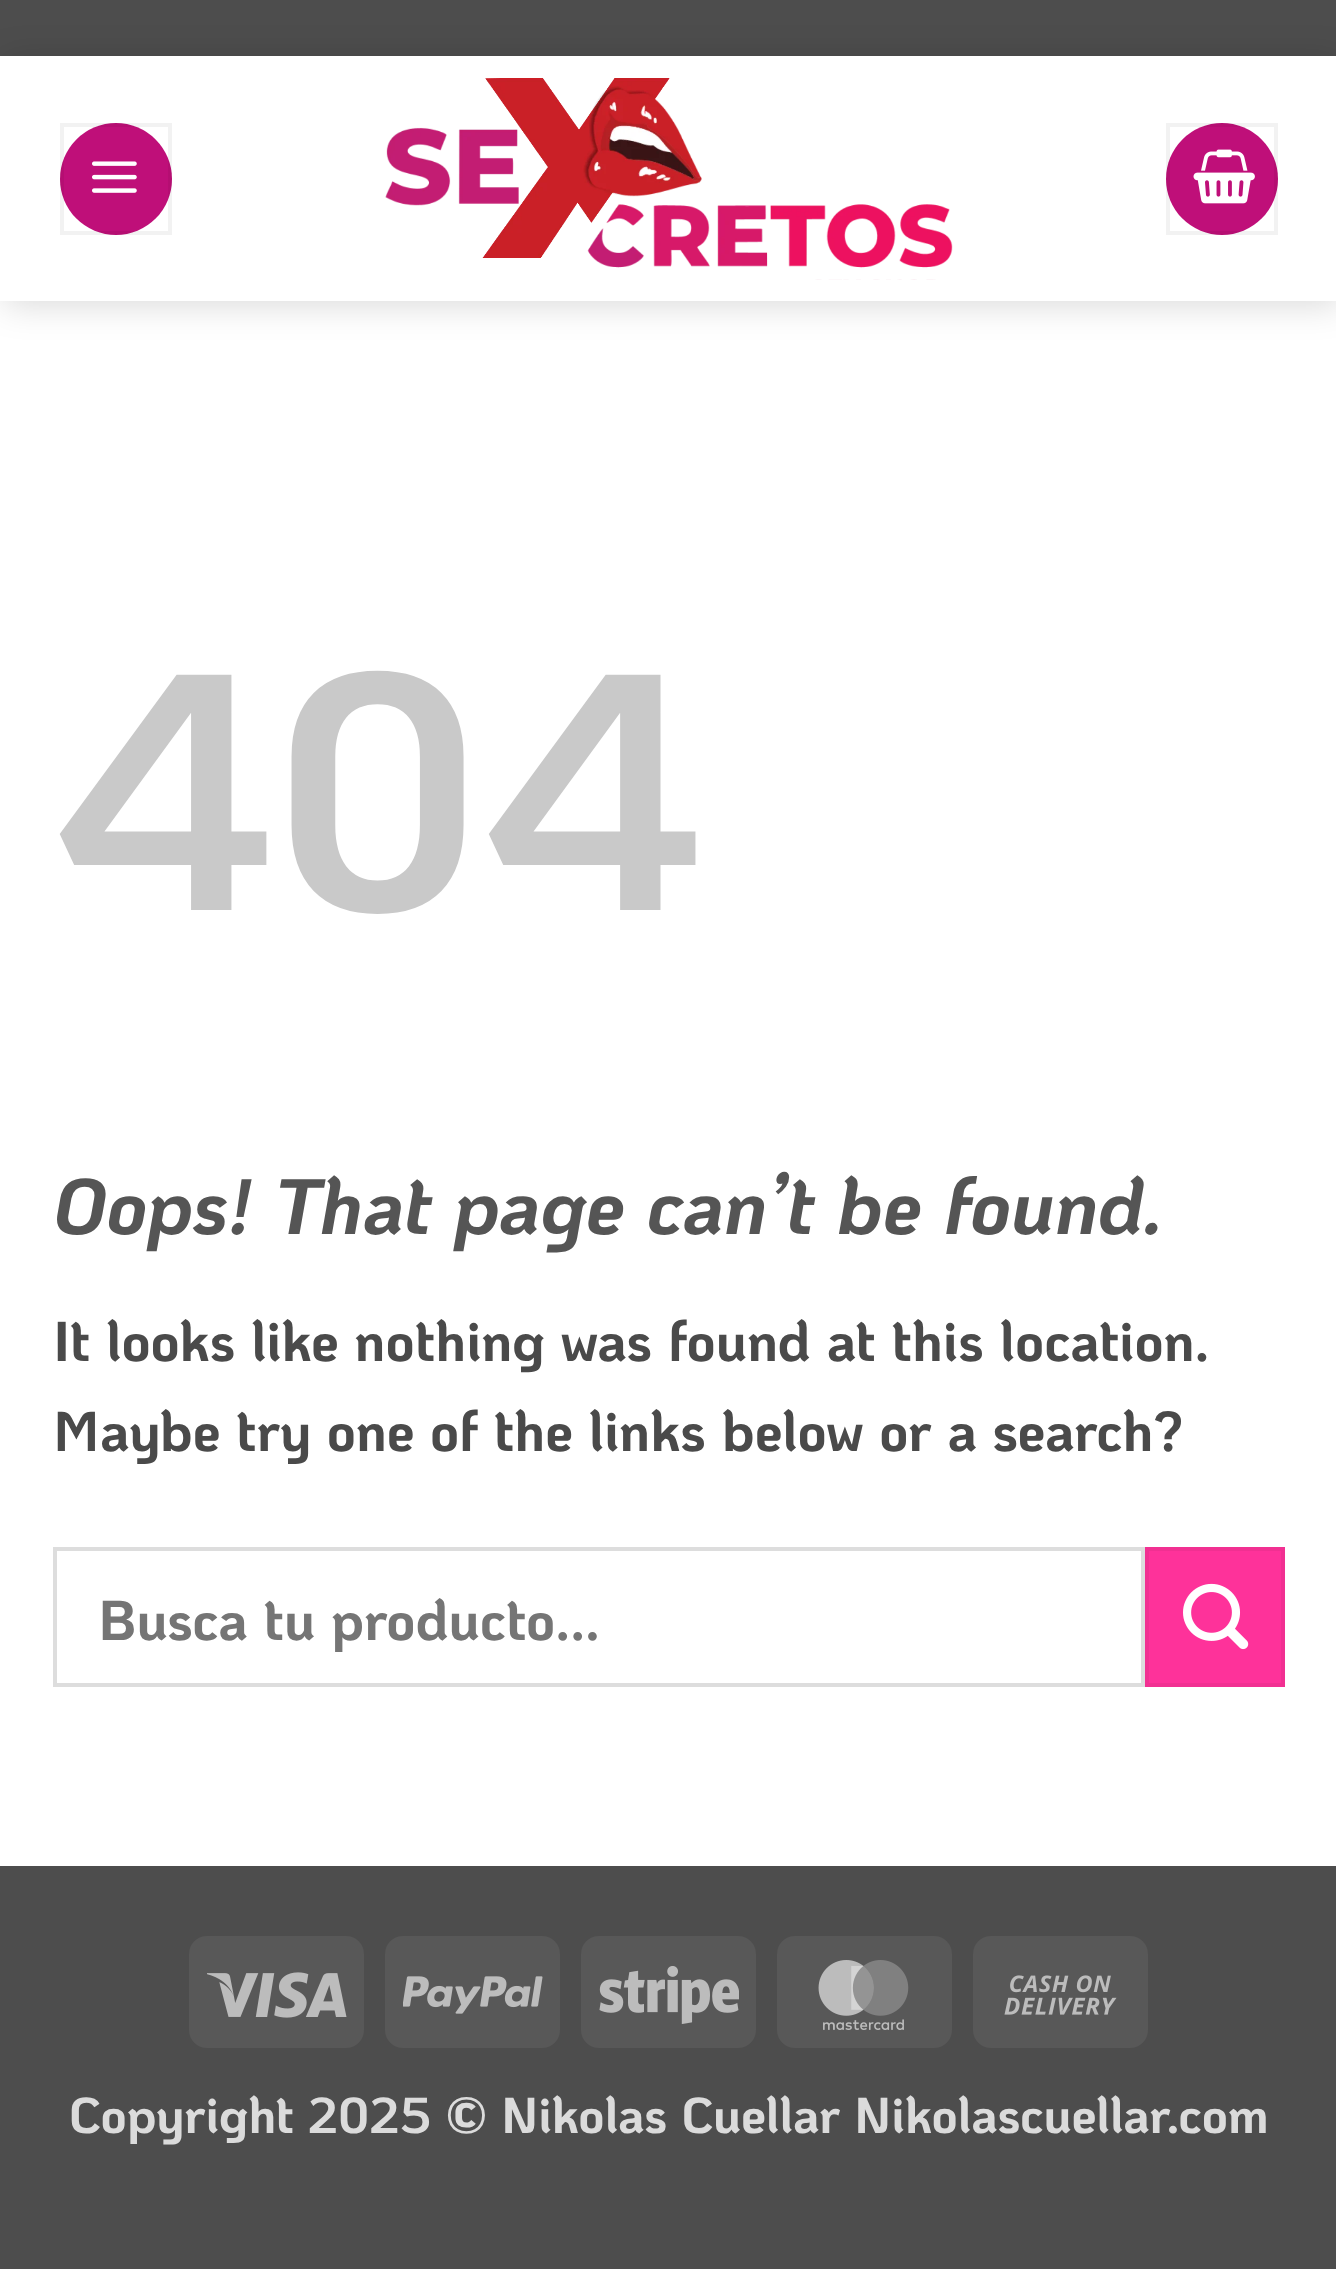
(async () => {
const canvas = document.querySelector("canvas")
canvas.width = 1336
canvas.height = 2269
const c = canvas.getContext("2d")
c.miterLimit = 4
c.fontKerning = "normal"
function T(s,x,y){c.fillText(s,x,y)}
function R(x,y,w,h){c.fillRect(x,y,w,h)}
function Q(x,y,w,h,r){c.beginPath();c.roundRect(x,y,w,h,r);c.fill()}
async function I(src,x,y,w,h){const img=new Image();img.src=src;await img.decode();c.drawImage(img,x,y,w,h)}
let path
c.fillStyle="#4d4d4d"
R(0,0,1336,2269)
c.fillStyle="#fff"
R(0,56,1336,1810)
c.save()
path = new Path2D("M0 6h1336v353h-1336zm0 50h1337v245h-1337z")
c.clip(path,"evenodd")
c.fillStyle="#00000026"
c.filter="blur(17.5px)"
c.beginPath()
c.rect(4,60,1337,245)
c.fill()
c.filter="none"
c.restore()
c.fillStyle="#bf0f79"
c.beginPath()
c.arc(116,179,56,0,7)
c.fill()
c.strokeStyle="#0000000d"
c.lineWidth=4
c.strokeRect(62,125,108,108)
await I("1.png",92,161,45,32)
await I("2.png",385,78,568,202)
c.beginPath()
c.arc(1222,179,56,0,7)
c.fill()
c.strokeRect(1168,125,108,108)
await I("3.png",1193,149,62,55)
c.font="bold 336px KoHo"
c.fillStyle="#c9c9c9"
T("404",53,910)
c.font="italic bold 78.4px KoHo"
c.fillStyle="#555"
T("Oops! That page can’t be found.",53,1234)
c.font="bold 56px KoHo"
c.fillStyle="#4a4a4a"
T("It looks like nothing was found at this location.",53,1361)
T("Maybe try one of the links below or a search?",53,1451)
c.strokeStyle="#ddd"
c.strokeRect(55,1549,1088,136)
c.save()
c.beginPath()
c.rect(98,1579,987,73)
c.clip()
c.fillStyle="#757575"
T("Busca tu producto...",98,1640)
c.restore()
c.fillStyle="#fe329a"
c.beginPath()
c.rect(1147,1549,136,136)
c.fill()
c.strokeStyle="#f13092"
c.stroke()
await I("4.png",1183,1583,66,67)
c.fillStyle="#585858"
Q(189,1936,175,112,18)
await I("5.png",207,1972,140,46)
Q(385,1936,175,112,18)
await I("6.png",403,1976,140,38)
Q(581,1936,175,112,18)
await I("7.png",599,1966,140,58)
Q(777,1936,175,112,18)
await I("8.png",818,1960,91,70)
Q(973,1936,175,112,18)
await I("9.png",1004,1975,113,40)
c.font="bold 50.4px KoHo"
c.fillStyle="#dbdbdb"
T("Copyright 2025 © Nikolas Cuellar Nikolascuellar.com",69,2133)
})()
